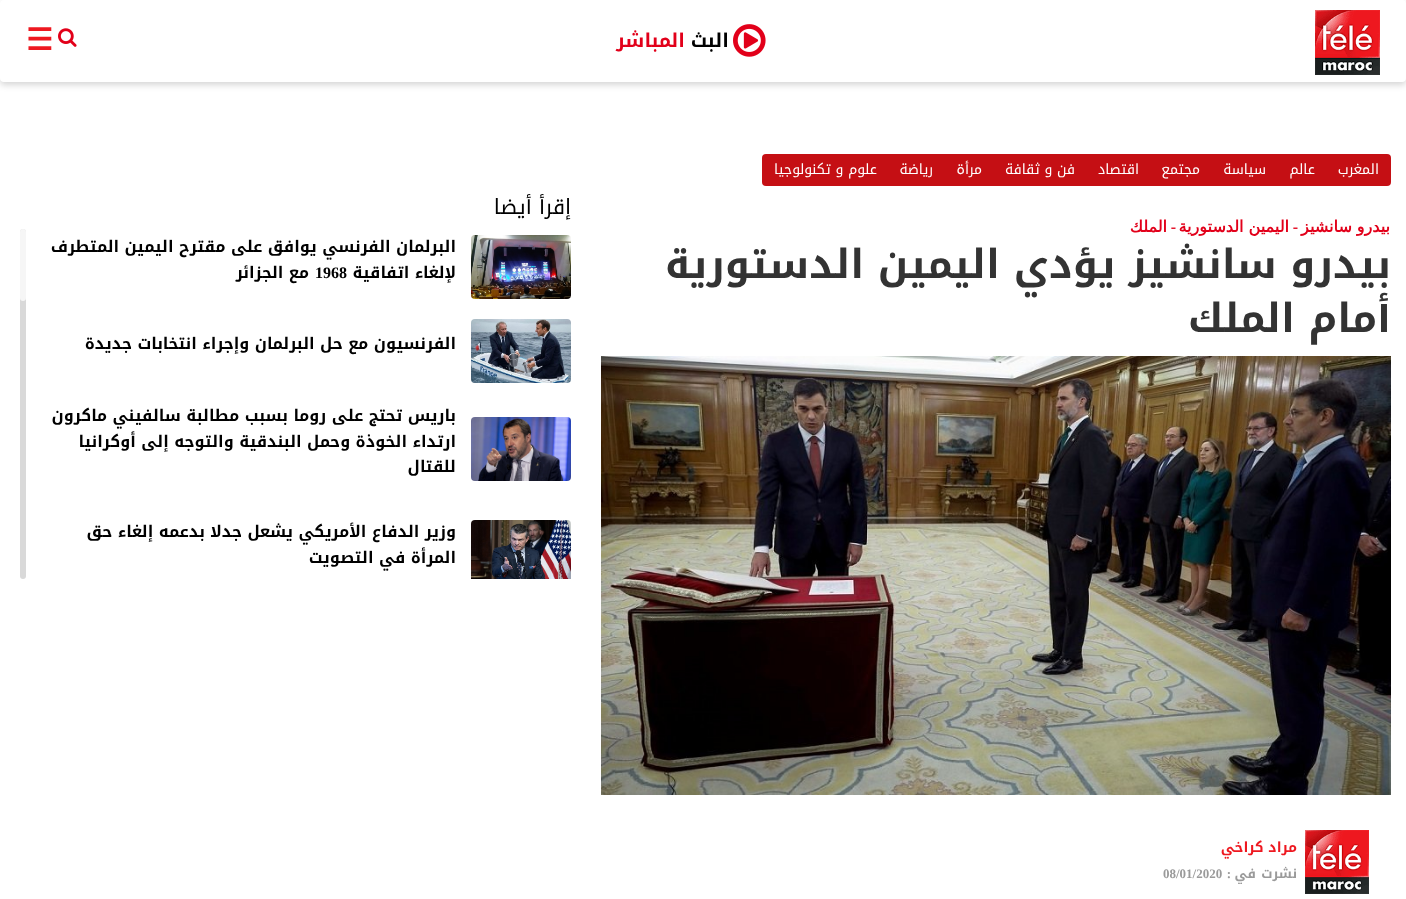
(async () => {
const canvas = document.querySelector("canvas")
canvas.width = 1406
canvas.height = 899
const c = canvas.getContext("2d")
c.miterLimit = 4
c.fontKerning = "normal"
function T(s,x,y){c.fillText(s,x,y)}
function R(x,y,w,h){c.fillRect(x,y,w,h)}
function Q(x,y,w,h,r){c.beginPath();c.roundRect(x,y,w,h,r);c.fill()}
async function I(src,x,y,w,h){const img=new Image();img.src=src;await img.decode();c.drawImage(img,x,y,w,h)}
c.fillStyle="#fff"
R(0,0,1406,899)
c.fillStyle="#00000029"
c.filter="blur(3px)"
c.beginPath()
c.roundRect(0,3,1406,82,4)
c.fill()
c.filter="none"
c.fillStyle="#fff"
Q(0,0,1406,82,4)
await I("1.png",1315,10,65,65)
await I("2.png",733,24,33,33)
c.direction="rtl"
c.font="bold 19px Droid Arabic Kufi"
c.fillStyle="#000"
T("البث",729,47)
c.fillStyle="#e2001a"
T("المباشر",685,47)
await I("3.png",58,28,19,19)
c.direction="ltr"
c.font="bold 30px DejaVu Sans"
c.fillStyle="#ee1820"
T("☰",26,50)
c.fillStyle="#c50f14"
c.beginPath()
c.roundRect(1326,154,65,32,[0,4,4,0])
c.fill()
c.direction="rtl"
c.font="14px Droid Arabic Kufi"
c.fillStyle="#fff"
T("المغرب",1379,174)
c.fillStyle="#c50f14"
R(889,154,437,32)
c.fillStyle="#fff"
T("عالم",1315,174)
T("سياسة",1266,174)
T("مجتمع",1200,174)
T("اقتصاد",1139,174)
T("فن و ثقافة",1075,174)
T("مرأة",982,174)
T("رياضة",933,174)
c.fillStyle="#c50f14"
c.beginPath()
c.roundRect(762,154,127,32,[4,0,0,4])
c.fill()
c.fillStyle="#fff"
T("علوم و تكنولوجيا",877,174)
c.font="bold 16px DejaVu Sans"
c.fillStyle="#e2001a"
T("بيدرو سانشيز",1390,232)
c.font="bold 16px Liberation Serif"
T("-",1298,232)
c.font="bold 16px DejaVu Sans"
T("اليمين الدستورية",1289,232)
c.font="bold 16px Liberation Serif"
T("-",1176,232)
c.font="bold 16px DejaVu Sans"
T("الملك",1167,232)
c.font="bold 40px Droid Arabic Kufi"
c.fillStyle="#333"
T("بيدرو سانشيز يؤدي اليمين الدستورية",1391,278)
T("أمام الملك",1391,332)
await I("4.png",601,356,790,439)
await I("5.png",1305,830,64,64)
c.font="bold 14px Droid Arabic Kufi"
c.fillStyle="#ee1820"
T("مراد كراخي",1297,852)
c.save()
c.beginPath()
c.rect(623,830,674,54)
c.clip()
c.wordSpacing="1px"
c.font="bold 13px Droid Arabic Kufi"
c.fillStyle="#9a9a9a"
T("نشرت في",1297,878)
c.restore()
c.font="bold 13px Liberation Serif"
c.fillStyle="#9a9a9a"
T(":",1231,878)
c.direction="ltr"
T("08/01/2020",1163,878)
c.direction="rtl"
c.font="21px Droid Arabic Kufi"
c.fillStyle="#000"
T("إقرأ أيضا",571,214)
await I("6.png",471,235,100,64)
c.font="bold 16px Droid Arabic Kufi"
T("البرلمان الفرنسي يوافق على مقترح اليمين المتطرف",456,252)
T("لإلغاء اتفاقية",456,278)
c.direction="ltr"
c.font="bold 16px Liberation Serif"
T("1968",315,278)
c.direction="rtl"
c.font="bold 16px Droid Arabic Kufi"
T("مع الجزائر",309,278)
await I("7.png",471,319,100,64)
T("الفرنسيون مع حل البرلمان وإجراء انتخابات جديدة",456,349)
await I("8.png",471,417,100,64)
T("باريس تحتج على روما بسبب مطالبة سالفيني ماكرون",456,421)
T("ارتداء الخوذة وحمل البندقية والتوجه إلى أوكرانيا",456,447)
T("للقتال",456,472)
await I("9.png",471,520,100,59)
T("وزير الدفاع الأمريكي يشعل جدلا بدعمه إلغاء حق",456,537)
T("المرأة في التصويت",456,563)
c.fillStyle="#d9d9d9"
Q(20,229,6,350,3)
c.fillStyle="#ffffffbf"
Q(20,229,6,72,3)
})()
